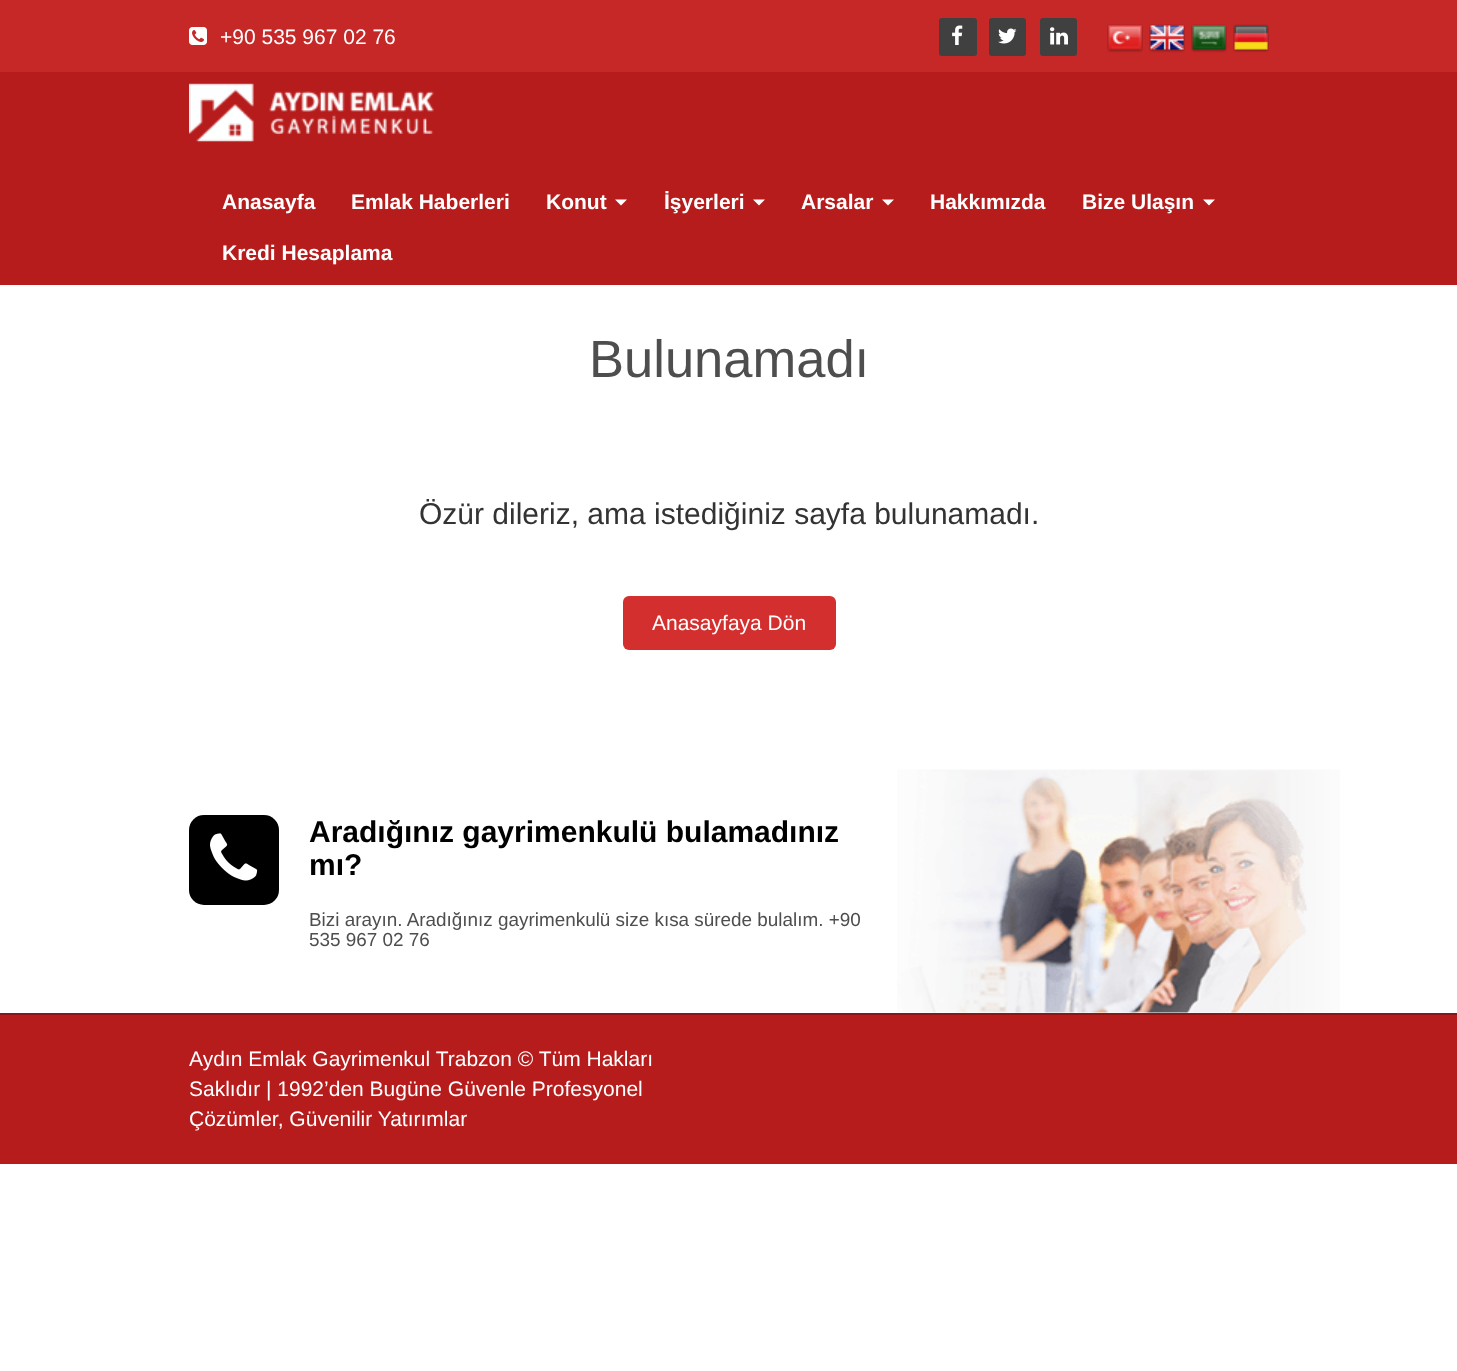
(async () => {
const canvas = document.querySelector("canvas")
canvas.width = 1457
canvas.height = 1371
const c = canvas.getContext("2d")
c.miterLimit = 4
c.fontKerning = "normal"
function T(s,x,y){c.fillText(s,x,y)}
function R(x,y,w,h){c.fillRect(x,y,w,h)}
function Q(x,y,w,h,r){c.beginPath();c.roundRect(x,y,w,h,r);c.fill()}
async function I(src,x,y,w,h){const img=new Image();img.src=src;await img.decode();c.drawImage(img,x,y,w,h)}
let path
c.fillStyle="#fff"
R(0,0,1457,1371)
c.fillStyle="#c62828"
R(0,0,1457,72)
await I("1.png",189,27,18,18)
c.font="21px Liberation Sans"
c.fillStyle="#fff"
T("+90 535 967 02 76",220,44)
c.fillStyle="#404040"
Q(939,18,38,38,3)
await I("2.png",952,25,11,20)
Q(989,18,37,38,3)
await I("3.png",998,28,19,16)
Q(1040,18,37,38,3)
await I("4.png",1050,27,18,18)
await I("5.png",1107,24,36,29)
await I("6.png",1149,24,36,29)
await I("7.png",1191,24,36,29)
await I("8.png",1233,24,36,29)
c.fillStyle="#b71c1c"
R(0,72,1457,213)
await I("9.png",189,83,245,59)
c.font="bold 21px Liberation Sans"
c.fillStyle="#fff"
T("Anasayfa",222,209)
T("Emlak Haberleri",351,209)
T("Konut",546,209)
path = new Path2D("M615 199.5h12l-6 6z")
c.fill(path)
T("İşyerleri",664,209)
path = new Path2D("M753 199.5h12l-6 6z")
c.fill(path)
T("Arsalar",801,209)
path = new Path2D("M882 199.5h12l-6 6z")
c.fill(path)
T("Hakkımızda",930,209)
T("Bize Ulaşın",1082,209)
path = new Path2D("M1203 199.5h12l-6 6z")
c.fill(path)
T("Kredi Hesaplama",222,260)
c.font="52.5px Liberation Sans"
c.fillStyle="#4e4e4e"
T("Bulunamadı",589,377)
c.font="30px Liberation Sans"
c.fillStyle="#333"
T("Özür dileriz, ama istediğiniz sayfa bulunamadı.",419,524)
c.fillStyle="#d32f2f"
Q(623,596,213,54,6)
c.font="21px Liberation Sans"
c.fillStyle="#fff"
T("Anasayfaya Dön",652,630)
await I("10.png",897,769,443,244)
c.fillStyle="#000"
Q(189,815,90,90,15)
await I("11.png",210,833,48,48)
c.font="bold 30px Liberation Sans"
T("Aradığınız gayrimenkulü bulamadınız",309,842)
T("mı?",309,875)
c.font="18.9px Liberation Sans"
c.fillStyle="#4e4e4e"
T("Bizi arayın. Aradığınız gayrimenkulü size kısa sürede bulalım. +90",309,926)
T("535 967 02 76",309,946)
c.fillStyle="#b71c1c"
R(0,1015,1457,149)
c.fillStyle="#8c1515"
R(0,1013,1457,2)
c.font="21px Liberation Sans"
c.fillStyle="#fff"
T("Aydın Emlak Gayrimenkul Trabzon © Tüm Hakları",189,1066)
T("Saklıdır | 1992’den Bugüne Güvenle Profesyonel",189,1096)
T("Çözümler, Güvenilir Yatırımlar",189,1126)
})()
